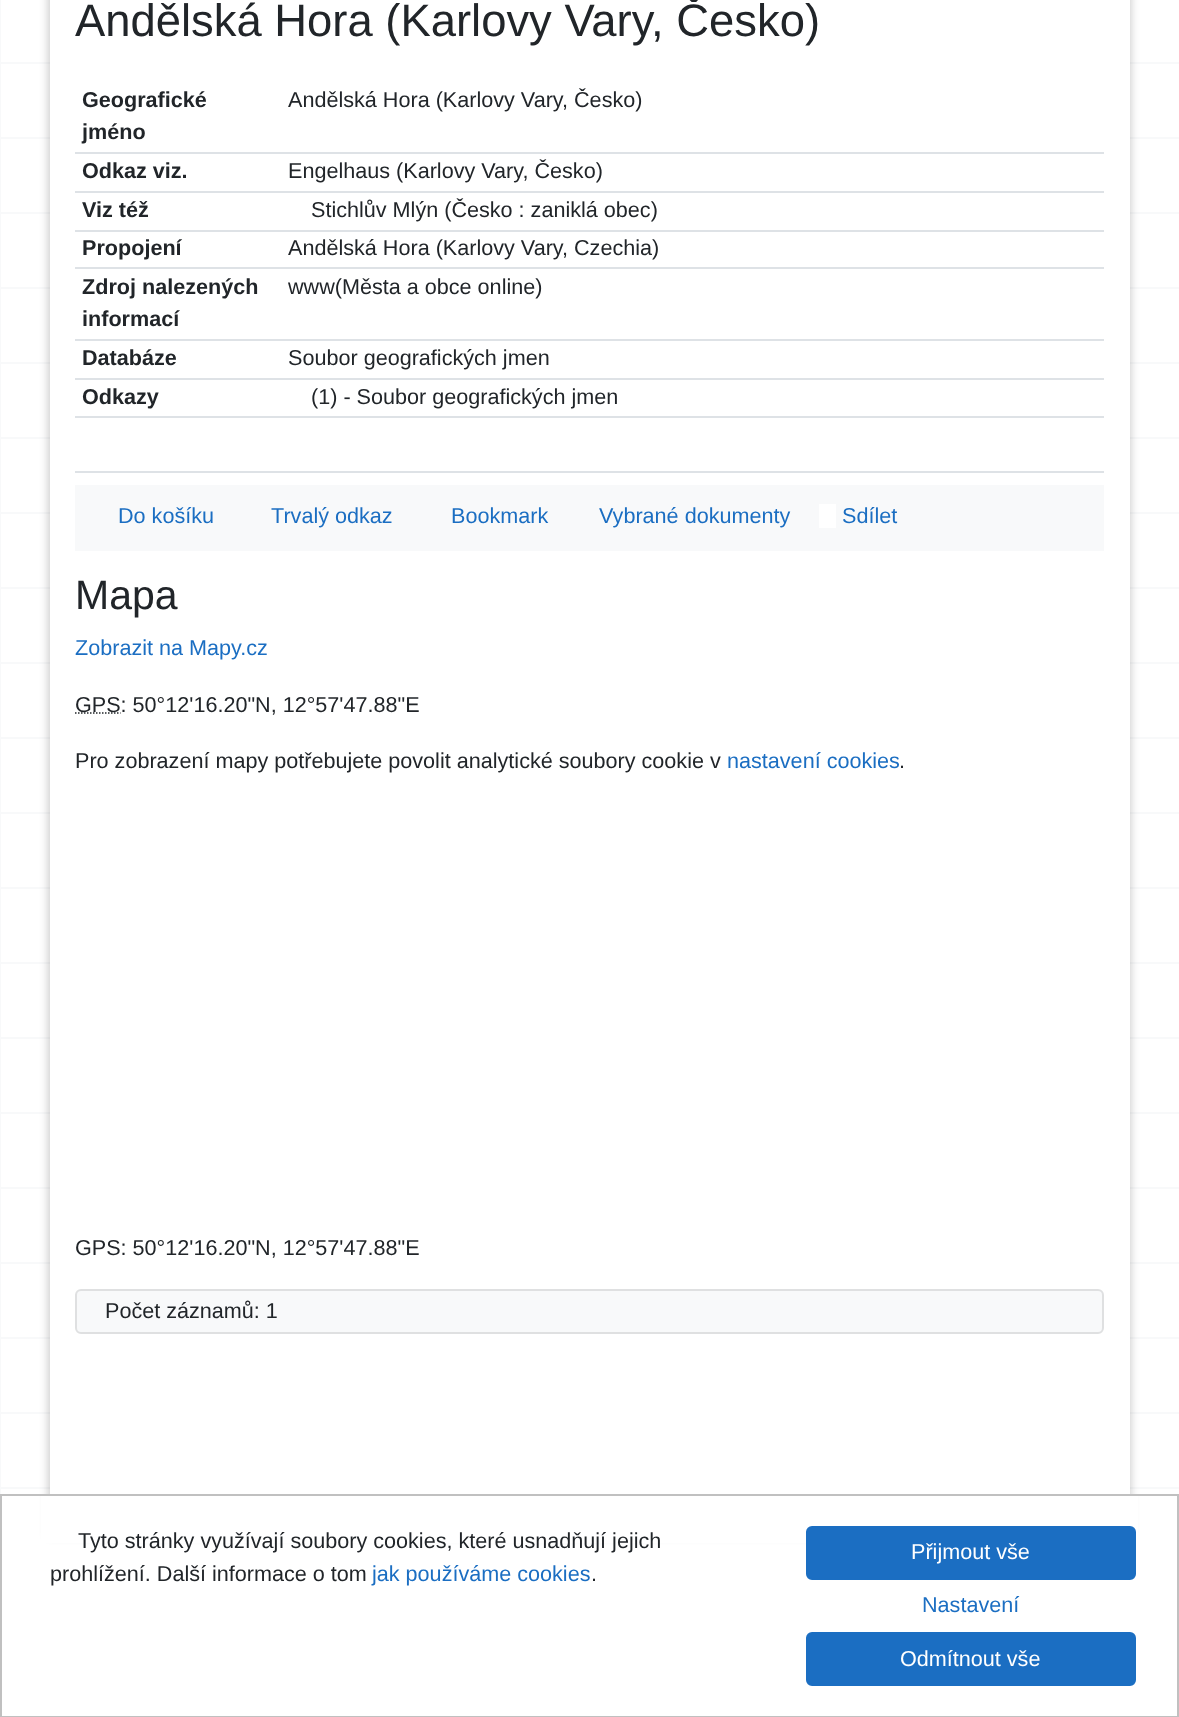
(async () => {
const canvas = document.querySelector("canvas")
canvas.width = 1179
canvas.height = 1717
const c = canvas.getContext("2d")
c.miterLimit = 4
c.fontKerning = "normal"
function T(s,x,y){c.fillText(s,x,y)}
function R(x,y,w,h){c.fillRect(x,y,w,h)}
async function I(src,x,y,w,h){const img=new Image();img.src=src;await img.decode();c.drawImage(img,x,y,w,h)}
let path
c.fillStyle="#fff"
R(0,0,1179,1717)
c.fillStyle="#f8f9fa"
R(0,0,1,1494)
await I("1.png",1,62,1178,1427)
c.fillStyle="#00000033"
c.filter="blur(4.5px)"
c.beginPath()
c.rect(48,-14,1083,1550)
c.fill()
c.filter="none"
c.fillStyle="#fff"
R(50,0,1080,1494)
c.font="45.4px Liberation Sans"
c.fillStyle="#212529"
T("Andělská Hora (Karlovy Vary, Česko)",75,36)
c.font="bold 21.6px Liberation Sans"
T("Geografické",82,107)
T("jméno",82,139)
c.font="21.6px Liberation Sans"
T("Andělská Hora (Karlovy Vary, Česko)",288,107)
c.font="bold 21.6px Liberation Sans"
T("Odkaz viz.",82,178)
c.fillStyle="#dee2e6"
R(75,152,1029,2)
c.font="21.6px Liberation Sans"
c.fillStyle="#212529"
T("Engelhaus (Karlovy Vary, Česko)",288,178)
c.font="bold 21.6px Liberation Sans"
T("Viz též",82,217)
c.fillStyle="#dee2e6"
R(75,191,1029,2)
c.font="21.6px Liberation Sans"
c.fillStyle="#212529"
T("Stichlův Mlýn (Česko : zaniklá obec)",311,217)
c.font="bold 21.6px Liberation Sans"
T("Propojení",82,255)
c.fillStyle="#dee2e6"
R(75,230,1029,2)
c.font="21.6px Liberation Sans"
c.fillStyle="#212529"
T("Andělská Hora (Karlovy Vary, Czechia)",288,255)
c.font="bold 21.6px Liberation Sans"
T("Zdroj nalezených",82,294)
T("informací",82,326)
c.fillStyle="#dee2e6"
R(75,267,1029,2)
c.font="21.6px Liberation Sans"
c.fillStyle="#212529"
T("www(Města a obce online)",288,294)
c.font="bold 21.6px Liberation Sans"
T("Databáze",82,365)
c.fillStyle="#dee2e6"
R(75,339,1029,2)
c.font="21.6px Liberation Sans"
c.fillStyle="#212529"
T("Soubor geografických jmen",288,365)
c.font="bold 21.6px Liberation Sans"
T("Odkazy",82,404)
c.fillStyle="#dee2e6"
R(75,378,1029,2)
c.font="21.6px Liberation Sans"
c.fillStyle="#212529"
T("(1) - Soubor geografických jmen",311,404)
c.fillStyle="#dee2e6"
R(75,416,1029,2)
R(75,471,1029,2)
c.fillStyle="#f8f9fa"
R(75,485,1029,66)
c.fillStyle="#1b6ec2"
T("Do košíku",118,523)
T("Trvalý odkaz",271,523)
T("Bookmark",451,523)
T("Vybrané dokumenty",599,523)
T("Sdílet",842,523)
c.fillStyle="#fff"
R(819,504,17,24)
c.font="41px Liberation Sans"
c.fillStyle="#212529"
T("Mapa",75,609)
c.font="21.6px Liberation Sans"
c.fillStyle="#1b6ec2"
T("Zobrazit na Mapy.cz",75,655)
path = new Path2D("M75 713h45.5")
c.strokeStyle="#212529"
c.lineWidth=1.5
c.setLineDash([1.5,1.5])
c.stroke(path)
c.fillStyle="#212529"
T("GPS: 50°12'16.20\"N, 12°57'47.88\"E",75,712)
T("Pro zobrazení mapy potřebujete povolit analytické soubory cookie v",75,768)
c.fillStyle="#1b6ec2"
T("nastavení cookies",727,768)
c.fillStyle="#212529"
T(".",899,768)
T("GPS: 50°12'16.20\"N, 12°57'47.88\"E",75,1255)
c.fillStyle="#f8f9fa"
c.beginPath()
c.roundRect(76,1290,1027,43,5)
c.fill()
c.strokeStyle="#dfe0e1"
c.lineWidth=2
c.setLineDash([])
c.stroke()
c.fillStyle="#212529"
T("Počet záznamů: 1",105,1318)
c.fillStyle="#fff"
R(41,1496,1097,47)
c.strokeStyle="#c0c0c0"
c.strokeRect(1,1495,1177,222)
c.fillStyle="#212529"
T("Tyto stránky využívají soubory cookies, které usnadňují jejich",78,1548)
T("prohlížení. Další informace o tom",50,1581)
c.fillStyle="#1b6ec2"
T("jak používáme cookies",372,1581)
c.fillStyle="#212529"
T(".",591,1581)
c.fillStyle="#1b6ec2"
c.beginPath()
c.roundRect(807,1527,328,52,5)
c.fill()
c.strokeStyle="#1b6ec2"
c.stroke()
c.fillStyle="#fff"
T("Přijmout vše",911,1559)
c.fillStyle="#1b6ec2"
T("Nastavení",922,1612)
c.beginPath()
c.roundRect(807,1633,328,52,5)
c.fill()
c.stroke()
c.fillStyle="#fff"
T("Odmítnout vše",900,1666)
})()
